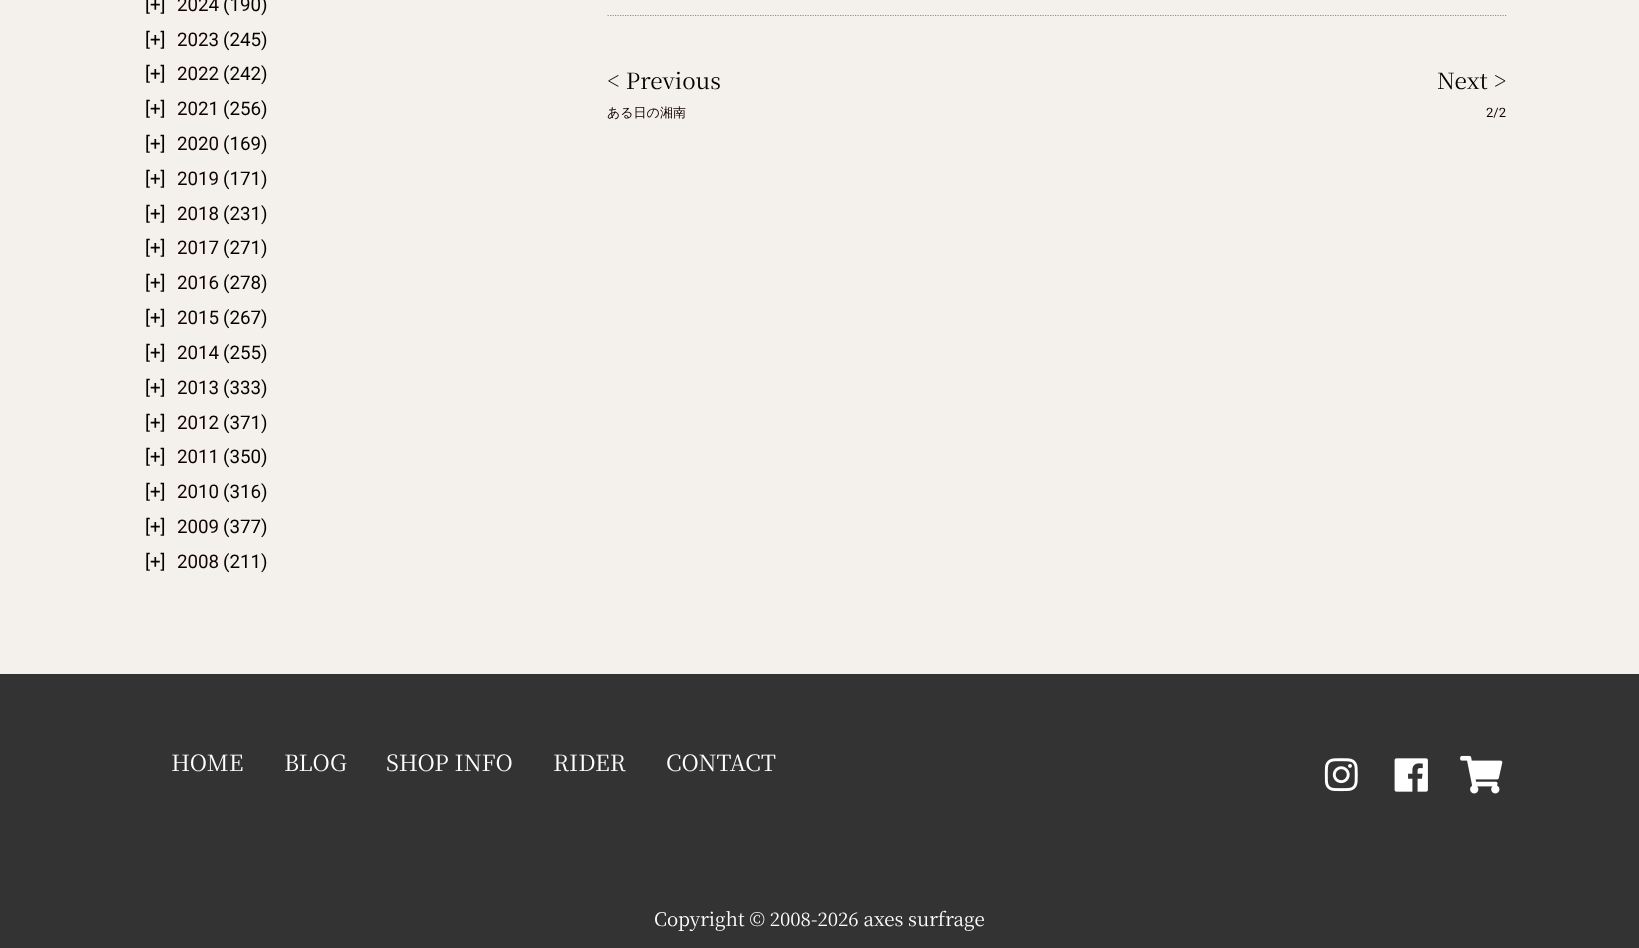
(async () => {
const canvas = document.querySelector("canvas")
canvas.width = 1639
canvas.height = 948
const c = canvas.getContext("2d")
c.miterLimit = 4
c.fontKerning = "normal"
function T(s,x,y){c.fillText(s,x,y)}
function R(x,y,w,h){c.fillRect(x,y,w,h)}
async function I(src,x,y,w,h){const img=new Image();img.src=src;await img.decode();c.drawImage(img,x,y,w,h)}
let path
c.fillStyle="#f4f1ec"
R(0,0,1639,948)
c.font="18.75px Roboto"
c.fillStyle="#010000"
T("[+]",145,11)
c.fillStyle="#100000"
T("2024",177,11)
c.fillStyle="#010000"
T("(190)",223,11)
T("[+]",145,46)
c.fillStyle="#100000"
T("2023",177,46)
c.fillStyle="#010000"
T("(245)",223,46)
T("[+]",145,80)
c.fillStyle="#100000"
T("2022",177,80)
c.fillStyle="#010000"
T("(242)",223,80)
T("[+]",145,115)
c.fillStyle="#100000"
T("2021",177,115)
c.fillStyle="#010000"
T("(256)",223,115)
T("[+]",145,150)
c.fillStyle="#100000"
T("2020",177,150)
c.fillStyle="#010000"
T("(169)",223,150)
T("[+]",145,185)
c.fillStyle="#100000"
T("2019",177,185)
c.fillStyle="#010000"
T("(171)",223,185)
T("[+]",145,220)
c.fillStyle="#100000"
T("2018",177,220)
c.fillStyle="#010000"
T("(231)",223,220)
T("[+]",145,254)
c.fillStyle="#100000"
T("2017",177,254)
c.fillStyle="#010000"
T("(271)",223,254)
T("[+]",145,289)
c.fillStyle="#100000"
T("2016",177,289)
c.fillStyle="#010000"
T("(278)",223,289)
T("[+]",145,324)
c.fillStyle="#100000"
T("2015",177,324)
c.fillStyle="#010000"
T("(267)",223,324)
T("[+]",145,359)
c.fillStyle="#100000"
T("2014",177,359)
c.fillStyle="#010000"
T("(255)",223,359)
T("[+]",145,394)
c.fillStyle="#100000"
T("2013",177,394)
c.fillStyle="#010000"
T("(333)",223,394)
T("[+]",145,429)
c.fillStyle="#100000"
T("2012",177,429)
c.fillStyle="#010000"
T("(371)",223,429)
T("[+]",145,463)
c.fillStyle="#100000"
T("2011",177,463)
c.fillStyle="#010000"
T("(350)",223,463)
T("[+]",145,498)
c.fillStyle="#100000"
T("2010",177,498)
c.fillStyle="#010000"
T("(316)",223,498)
T("[+]",145,533)
c.fillStyle="#100000"
T("2009",177,533)
c.fillStyle="#010000"
T("(377)",223,533)
T("[+]",145,568)
c.fillStyle="#100000"
T("2008",177,568)
c.fillStyle="#010000"
T("(211)",223,568)
path = new Path2D("M607.5 15.5h900")
c.strokeStyle="#92918e"
c.lineWidth=1.2
c.setLineDash([1.25,1.25])
c.stroke(path)
c.font="22.5px Noto Serif JP"
T("< Previous",607,89)
c.font="500 13px WenQuanYi Zen Hei"
c.fillStyle="#100000"
T("ある日の湘南",607,117)
c.font="22.5px Noto Serif JP"
c.fillStyle="#010000"
T("Next >",1437,89)
c.font="13px Roboto"
c.fillStyle="#100000"
T("2/2",1486,117)
c.fillStyle="#333"
R(0,674,1639,274)
c.font="22.5px Noto Serif JP"
c.fillStyle="#fff"
T("HOME",171,771)
T("BLOG",284,771)
T("SHOP INFO",386,771)
T("RIDER",553,771)
T("CONTACT",666,771)
await I("1.png",1324,758,34,34)
await I("2.png",1394,758,34,34)
await I("3.png",1460,755,43,39)
c.font="18.75px Noto Serif JP"
T("Copyright © 2008-2026 axes surfrage",654,926)
})()
